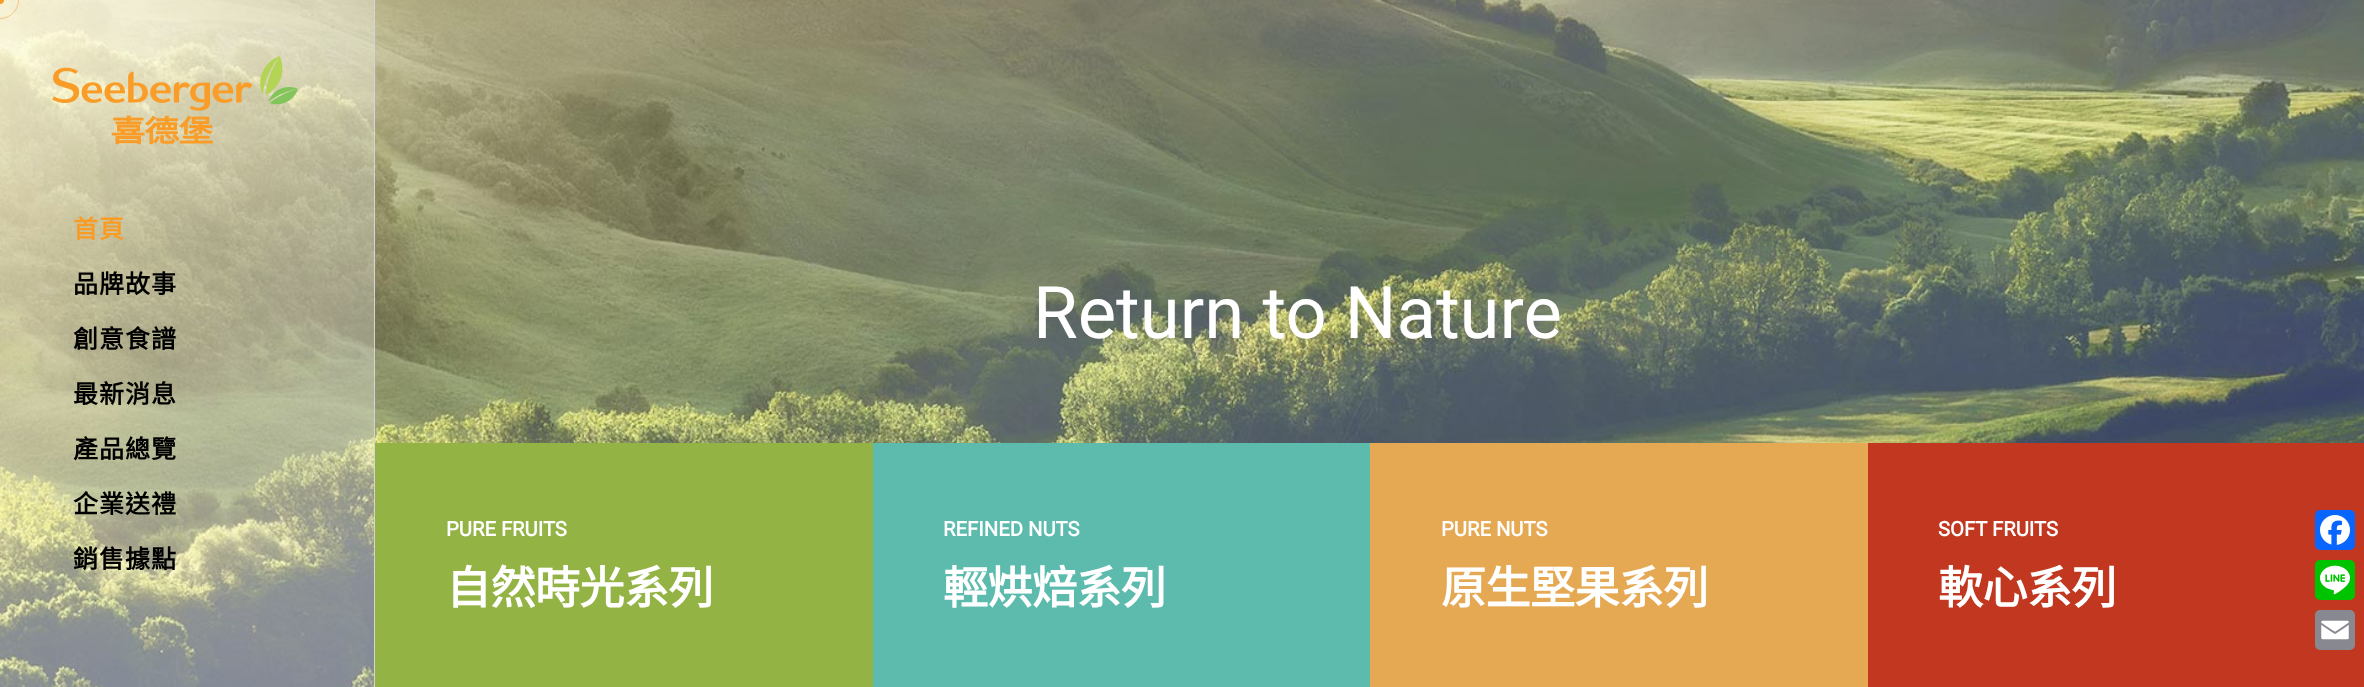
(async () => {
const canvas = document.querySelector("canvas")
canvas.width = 2364
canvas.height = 687
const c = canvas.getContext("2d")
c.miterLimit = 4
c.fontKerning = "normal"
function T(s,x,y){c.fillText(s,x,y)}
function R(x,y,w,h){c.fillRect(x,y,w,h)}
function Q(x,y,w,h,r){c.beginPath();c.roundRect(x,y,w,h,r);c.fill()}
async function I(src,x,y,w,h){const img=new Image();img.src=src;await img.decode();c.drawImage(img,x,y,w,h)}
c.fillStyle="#fff"
R(0,0,2364,687)
await I("2.png",0,0,2364,687)
c.fillStyle="#ffffff4d"
R(0,0,374,687)
c.beginPath()
c.arc(0,0,18.5,0,7)
c.strokeStyle="#f89c2680"
c.stroke()
c.fillStyle="#f89c26"
c.beginPath()
c.arc(0,0,4,0,7)
c.fill()
c.fillStyle="#d4d4d4"
R(374,0,1,687)
await I("1.png",52,56,246,89)
c.letterSpacing="1px"
c.font="bold 25px Noto Sans CJK TC"
c.fillStyle="#f89c26"
T("首頁",73,238)
c.fillStyle="#000"
T("品牌故事",73,293)
T("創意食譜",73,348)
T("最新消息",73,403)
T("產品總覽",73,458)
T("企業送禮",73,513)
T("銷售據點",73,568)
c.letterSpacing="0px"
c.font="72.5px Roboto"
c.fillStyle="#fff"
T("Return to Nature",1033,338)
c.fillStyle="#94b345"
R(375,443,498,244)
c.font="bold 20.25px Roboto"
c.fillStyle="#fff"
T("PURE FRUITS",446,536)
c.letterSpacing="-0.5px"
c.font="bold 45px Noto Sans CJK TC"
T("自然時光系列",446,604)
c.fillStyle="#5cbbad"
R(873,443,497,244)
c.letterSpacing="0px"
c.font="bold 20.25px Roboto"
c.fillStyle="#fff"
T("REFINED NUTS",943,536)
c.letterSpacing="-0.5px"
c.font="bold 45px Noto Sans CJK TC"
T("輕烘焙系列",943,604)
c.fillStyle="#e6a953"
R(1370,443,498,244)
c.letterSpacing="0px"
c.font="bold 20.25px Roboto"
c.fillStyle="#fff"
T("PURE NUTS",1441,536)
c.letterSpacing="-0.5px"
c.font="bold 45px Noto Sans CJK TC"
T("原生堅果系列",1441,604)
c.fillStyle="#c13720"
R(1868,443,496,244)
c.letterSpacing="0px"
c.font="bold 20.25px Roboto"
c.fillStyle="#fff"
T("SOFT FRUITS",1938,536)
c.letterSpacing="-0.5px"
c.font="bold 45px Noto Sans CJK TC"
T("軟心系列",1938,604)
c.fillStyle="#0866ff"
Q(2315,510,40,40,5)
await I("3.png",2320,515,30,30)
c.fillStyle="#00c300"
Q(2315,560,40,40,5)
await I("4.png",2320,565,30,30)
c.fillStyle="#888990"
Q(2315,610,40,40,5)
await I("5.png",2321,620,28,20)
})()
